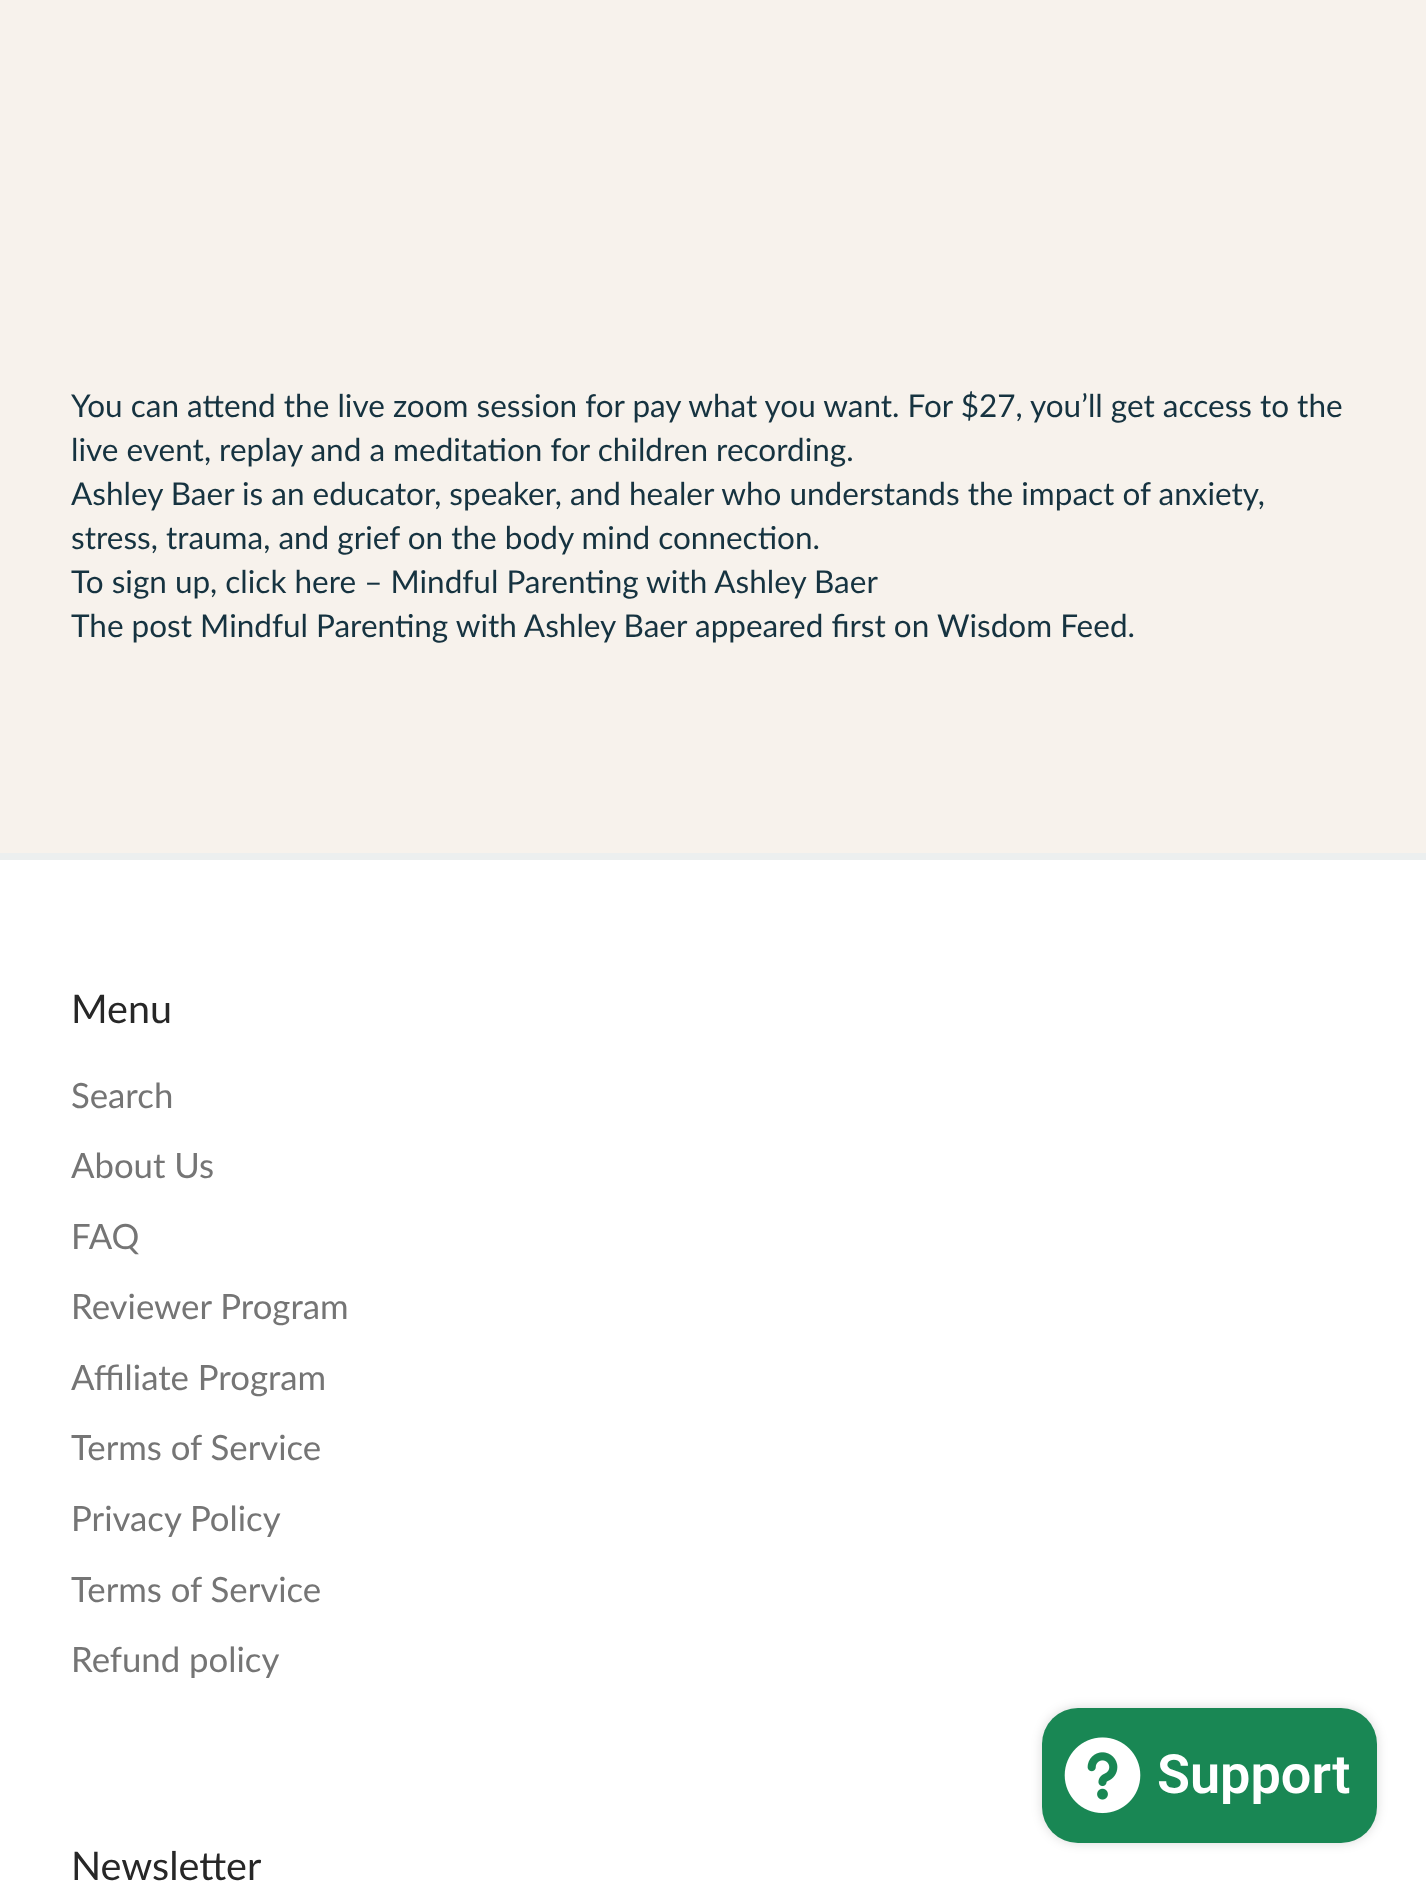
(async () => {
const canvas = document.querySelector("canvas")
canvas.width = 1426
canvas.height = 1889
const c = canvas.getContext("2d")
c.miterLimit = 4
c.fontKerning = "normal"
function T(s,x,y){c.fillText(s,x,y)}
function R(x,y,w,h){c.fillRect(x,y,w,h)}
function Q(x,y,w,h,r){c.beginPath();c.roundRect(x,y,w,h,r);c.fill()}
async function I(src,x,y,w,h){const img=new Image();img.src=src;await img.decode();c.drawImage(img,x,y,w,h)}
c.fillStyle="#f7f2ec"
R(0,0,1426,1889)
c.font="31.5px Lato"
c.fillStyle="#163340"
T("You can attend the live zoom session for pay what you want. For $27, you’ll get access to the",71,417)
T("live event, replay and a meditation for children recording.",71,461)
T("Ashley Baer is an educator, speaker, and healer who understands the impact of anxiety,",71,505)
T("stress, trauma, and grief on the body mind connection.",71,549)
T("To sign up, click here – Mindful Parenting with Ashley Baer",71,593)
T("The post Mindful Parenting with Ashley Baer",71,637)
T("appeared first on",695,637)
T("Wisdom Feed.",937,637)
c.fillStyle="#fff"
R(0,860,1426,1029)
c.fillStyle="#ecefef"
R(0,853,1426,7)
c.font="39.5px Lato"
c.fillStyle="#272727"
T("Menu",71,1023)
c.font="34.75px Lato"
c.fillStyle="#757575"
T("Search",71,1108)
T("About Us",71,1178)
T("FAQ",71,1249)
T("Reviewer Program",71,1319)
T("Affiliate Program",71,1390)
T("Terms of Service",71,1460)
T("Privacy Policy",71,1531)
T("Terms of Service",71,1602)
T("Refund policy",71,1672)
c.font="39.5px Lato"
c.fillStyle="#272727"
T("Newsletter",71,1880)
c.fillStyle="#00000026"
c.filter="blur(5.5px)"
c.beginPath()
c.roundRect(1042,1708,335,135,36)
c.fill()
c.filter="none"
c.fillStyle="#198754"
Q(1042,1708,335,135,36)
await I("1.png",1064,1737,77,77)
c.font="600 54px Roboto"
c.fillStyle="#fff"
T("Support",1157,1793)
})()
